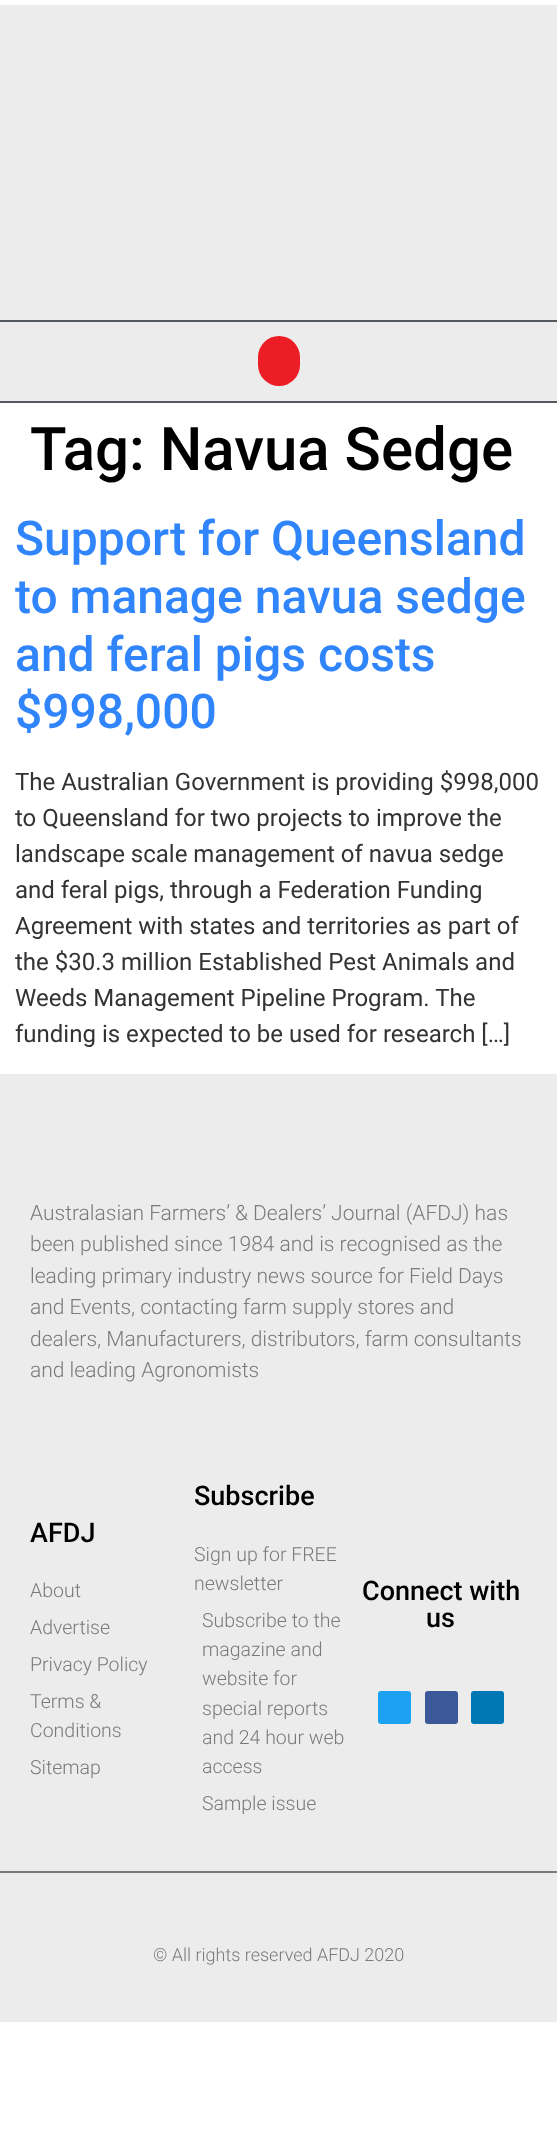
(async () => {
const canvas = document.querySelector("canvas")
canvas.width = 557
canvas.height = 2143
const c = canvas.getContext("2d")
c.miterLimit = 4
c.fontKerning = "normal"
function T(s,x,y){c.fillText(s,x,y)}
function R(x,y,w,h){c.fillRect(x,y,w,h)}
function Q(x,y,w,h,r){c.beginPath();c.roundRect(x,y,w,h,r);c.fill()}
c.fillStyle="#fff"
R(0,0,557,2143)
c.fillStyle="#ececec"
R(0,5,557,315)
R(0,322,557,79)
c.fillStyle="#54595f"
R(0,320,557,2)
R(0,401,557,2)
c.fillStyle="#ec1d24"
Q(258,336,42,50,21)
c.font="500 60px Roboto"
c.fillStyle="#000"
T("Tag: Navua Sedge",30,470)
c.font="500 48px Roboto"
c.fillStyle="#3185fc"
T("Support for Queensland",15,555)
T("to manage navua sedge",15,613)
T("and feral pigs costs",15,671)
T("$998,000",15,728)
c.font="24px Roboto"
c.fillStyle="#333"
T("The Australian Government is providing $998,000",15,790)
T("to Queensland for two projects to improve the",15,826)
T("landscape scale management of navua sedge",15,862)
T("and feral pigs, through a Federation Funding",15,898)
T("Agreement with states and territories as part of",15,934)
T("the $30.3 million Established Pest Animals and",15,970)
T("Weeds Management Pipeline Program. The",15,1006)
T("funding is expected to be used for research […]",15,1042)
c.fillStyle="#ececec"
R(0,1074,557,797)
c.font="300 21px Roboto"
c.fillStyle="#7a7a7a"
T("Australasian Farmers’ & Dealers’ Journal (AFDJ) has",30,1220)
T("been published since 1984 and is recognised as the",30,1251)
T("leading primary industry news source for Field Days",30,1283)
T("and Events, contacting farm supply stores and",30,1314)
T("dealers, Manufacturers, distributors, farm consultants",30,1346)
T("and leading Agronomists",30,1377)
c.font="500 27px Roboto"
c.fillStyle="#000"
T("AFDJ",30,1542)
c.font="300 19.5px Roboto"
c.fillStyle="#7a7a7a"
T("About",30,1597)
T("Advertise",30,1634)
T("Privacy Policy",30,1671)
T("Terms &",30,1708)
T("Conditions",30,1737)
T("Sitemap",30,1774)
c.font="500 27px Roboto"
c.fillStyle="#000"
T("Subscribe",194,1505)
c.font="300 19.5px Roboto"
c.fillStyle="#7a7a7a"
T("Sign up for FREE",194,1561)
T("newsletter",194,1590)
T("Subscribe to the",202,1627)
T("magazine and",202,1656)
T("website for",202,1685)
T("special reports",202,1715)
T("and 24 hour web",202,1744)
T("access",202,1773)
T("Sample issue",202,1810)
c.font="500 27px Roboto"
c.fillStyle="#000"
T("Connect with",362,1600)
T("us",426,1627)
c.fillStyle="#1da1f2"
Q(378,1691,33,33,3)
c.fillStyle="#3b5998"
Q(425,1691,33,33,3)
c.fillStyle="#0077b5"
Q(471,1691,33,33,3)
c.fillStyle="#ececec"
R(0,1873,557,149)
c.fillStyle="#7a7a7a"
R(0,1871,557,2)
c.font="300 18px Roboto"
T("© All rights reserved AFDJ 2020",153,1961)
})()
